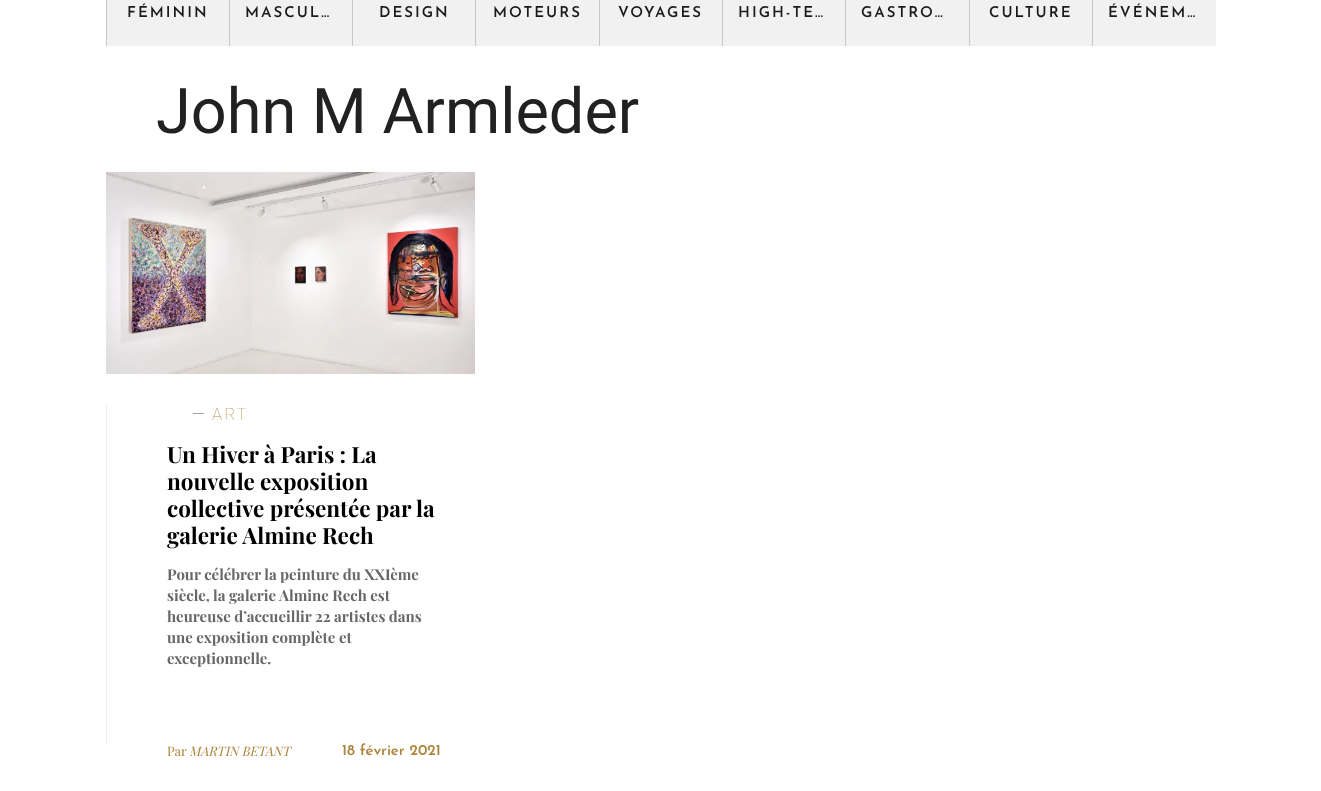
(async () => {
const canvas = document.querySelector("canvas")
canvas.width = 1321
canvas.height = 791
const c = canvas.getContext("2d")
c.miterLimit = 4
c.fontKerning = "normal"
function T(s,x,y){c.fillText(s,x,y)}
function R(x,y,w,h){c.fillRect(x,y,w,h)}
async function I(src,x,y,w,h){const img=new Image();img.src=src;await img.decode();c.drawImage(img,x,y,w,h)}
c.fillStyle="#fff"
R(0,0,1321,791)
c.fillStyle="#f1f1f1"
R(107,0,1109,46)
c.fillStyle="#c9c9c9"
R(106,0,1,46)
c.letterSpacing="2px"
c.font="600 15px Josefin Sans"
c.fillStyle="#1a1a1a"
T("FÉMININ",127,17)
c.fillStyle="#c9c9c9"
R(229,0,1,46)
c.fillStyle="#1a1a1a"
T("MASCUL…",245,17)
c.fillStyle="#c9c9c9"
R(352,0,1,46)
c.fillStyle="#1a1a1a"
T("DESIGN",379,17)
c.fillStyle="#c9c9c9"
R(475,0,1,46)
c.fillStyle="#1a1a1a"
T("MOTEURS",493,17)
c.fillStyle="#c9c9c9"
R(599,0,1,46)
c.fillStyle="#1a1a1a"
T("VOYAGES",618,17)
c.fillStyle="#c9c9c9"
R(722,0,1,46)
c.fillStyle="#1a1a1a"
T("HIGH-TE…",738,17)
c.fillStyle="#c9c9c9"
R(845,0,1,46)
c.fillStyle="#1a1a1a"
T("GASTRO…",861,17)
c.fillStyle="#c9c9c9"
R(969,0,1,46)
c.fillStyle="#1a1a1a"
T("CULTURE",989,17)
c.fillStyle="#c9c9c9"
R(1092,0,1,46)
c.fillStyle="#1a1a1a"
T("ÉVÉNEM…",1108,17)
c.letterSpacing="0px"
c.font="63px Roboto"
c.fillStyle="#212121"
T("John M Armleder",156,133)
await I("1.png",106,172,369,202)
c.fillStyle="#eee"
R(106,405,1,339)
c.letterSpacing="2px"
c.font="100 17px Roboto"
c.fillStyle="#313131"
T("—",192,420)
c.fillStyle="#ad8439"
T("ART",212,420)
c.letterSpacing="0px"
c.font="bold 22.5px Playfair Display"
c.fillStyle="#000"
T("Un Hiver à Paris : La",167,463)
T("nouvelle exposition",167,490)
T("collective présentée par la",167,517)
T("galerie Almine Rech",167,544)
c.font="bold 15px Playfair Display"
c.fillStyle="#676767"
T("Pour célébrer la peinture du XXIème",167,580)
T("siècle, la galerie Almine Rech est",167,601)
T("heureuse d’accueillir 22 artistes dans",167,622)
T("une exposition complète et",167,643)
T("exceptionnelle.",167,664)
c.font="13px Playfair Display"
c.fillStyle="#ad8439"
T("Par",167,756)
c.font="italic 13px Playfair Display"
T("MARTIN BETANT",189,756)
c.font="600 15px Josefin Sans"
T("18 février 2021",342,755)
})()
